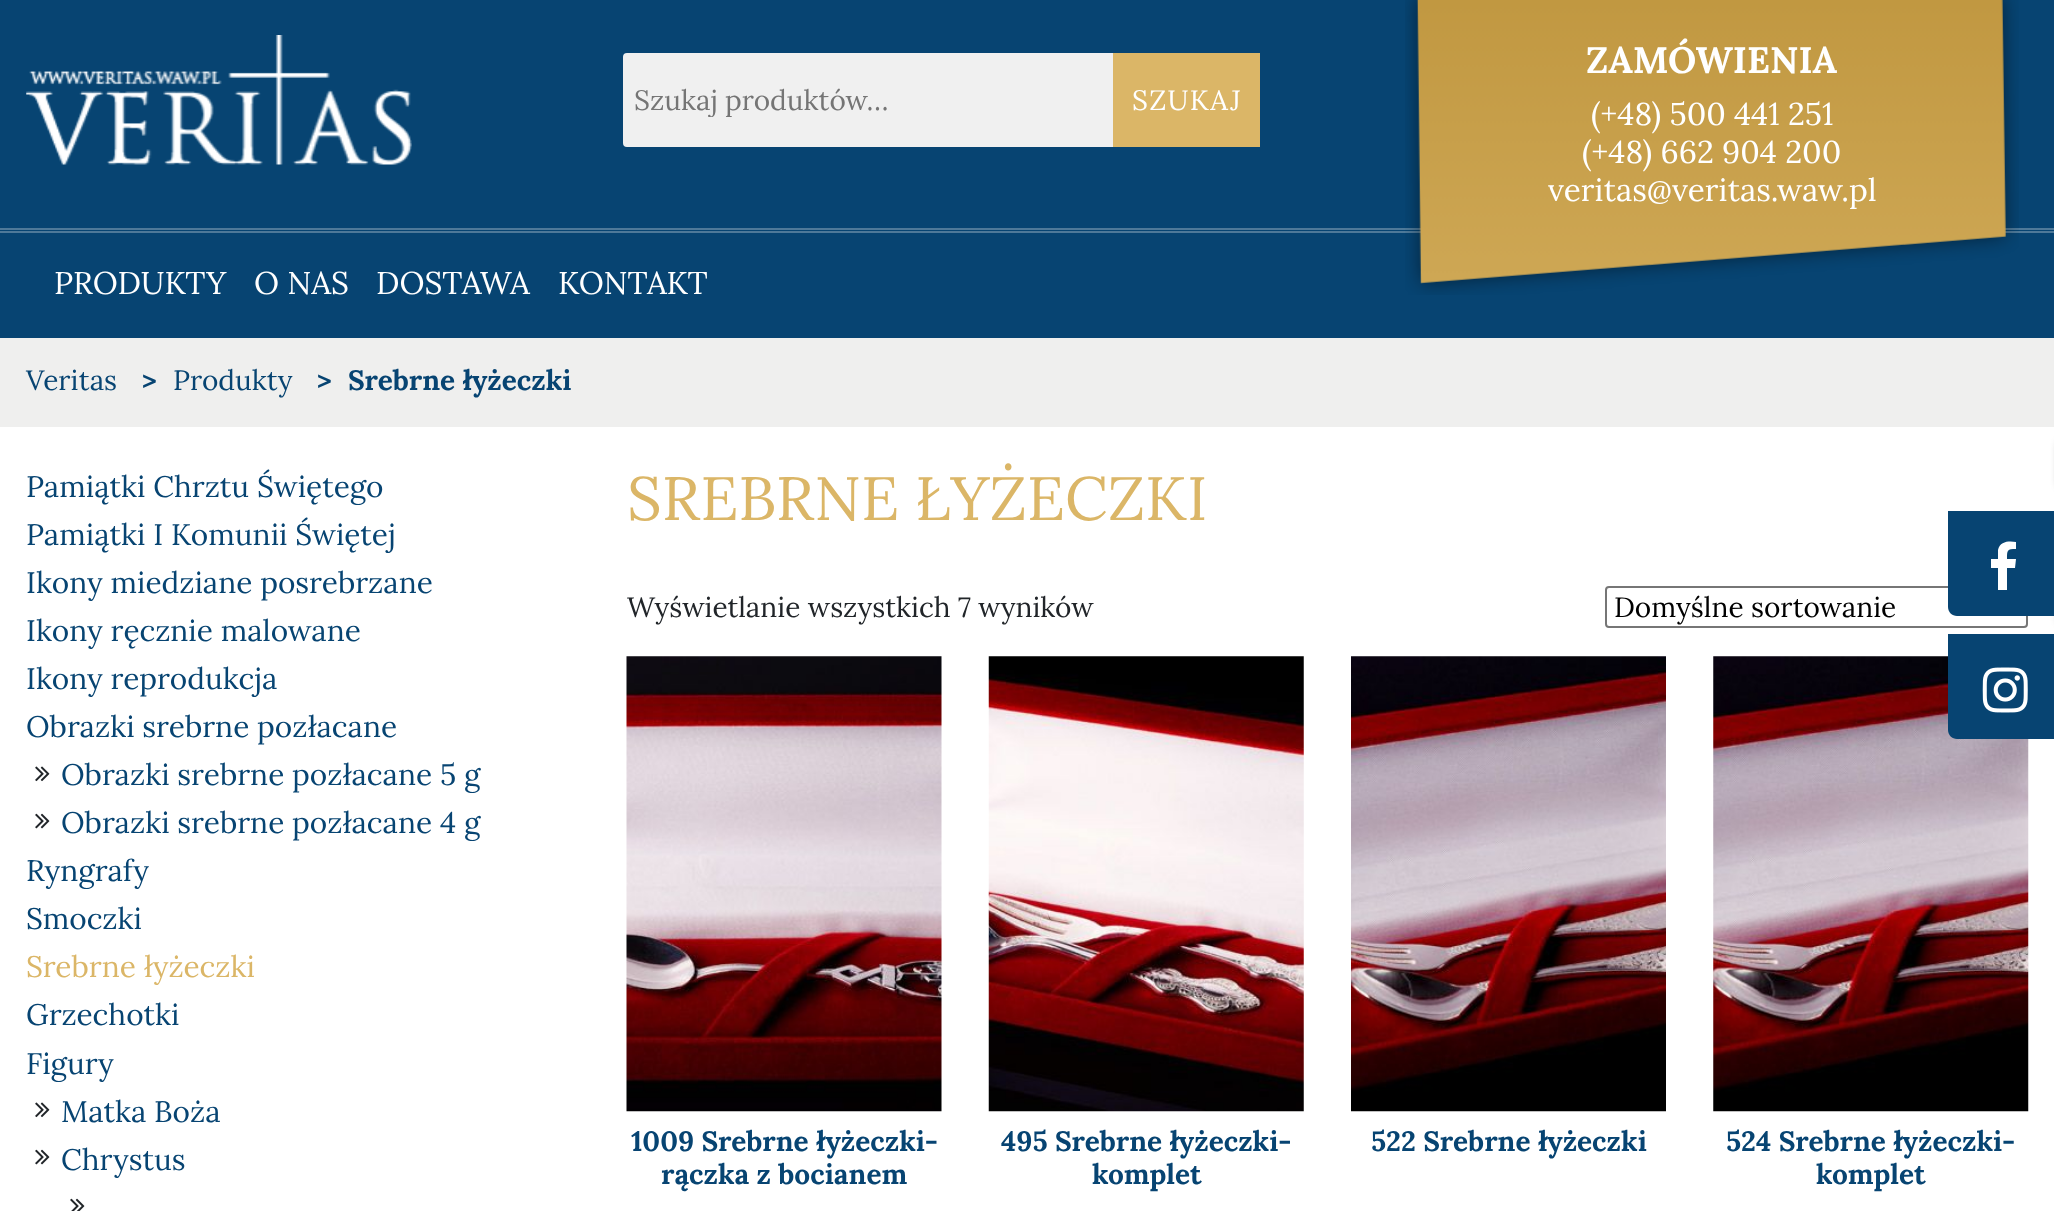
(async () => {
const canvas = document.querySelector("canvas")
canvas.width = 2054
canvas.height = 1211
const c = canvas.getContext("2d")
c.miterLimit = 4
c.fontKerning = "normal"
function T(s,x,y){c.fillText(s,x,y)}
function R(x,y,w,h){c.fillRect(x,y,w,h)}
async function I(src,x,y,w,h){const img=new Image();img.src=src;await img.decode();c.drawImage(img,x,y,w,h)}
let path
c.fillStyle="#fff"
R(0,0,2054,1211)
c.fillStyle="#074472"
R(0,0,2054,338)
await I("1.png",26,35,386,130)
c.fillStyle="#f0f0f0"
c.beginPath()
c.roundRect(624,54,490,92,[3,0,0,3])
c.fill()
c.strokeStyle="#f0f0f0"
c.lineWidth=2
c.stroke()
c.save()
c.beginPath()
c.rect(634,82,463,35)
c.clip()
c.font="28px Lora"
c.fillStyle="#757575"
T("Szukaj produktów…",634,110)
c.restore()
c.fillStyle="#dbb667"
R(1113,53,147,94)
c.letterSpacing="1.25px"
c.font="28px Lora"
c.fillStyle="#fff"
T("SZUKAJ",1132,110)
c.fillStyle="#4e7999"
R(0,228,2054,2)
R(0,231,2054,2)
await I("2.png",1405,0,614,295)
c.letterSpacing="0px"
c.font="bold 36.75px Lora"
c.fillStyle="#fff"
T("ZAMÓWIENIA",1586,73)
c.font="31.5px Lora"
T("(+48) 500 441 251",1591,125)
T("(+48) 662 904 200",1582,163)
T("veritas@veritas.waw.pl",1548,201)
T("PRODUKTY",54,294)
T("O NAS",254,294)
T("DOSTAWA",376,294)
T("KONTAKT",558,294)
c.fillStyle="#efefee"
R(0,338,2054,89)
c.font="28px Lora"
c.fillStyle="#074472"
T("Veritas",26,390)
c.font="bold 28px Lora"
T(">",142,390)
c.font="28px Lora"
T("Produkty",173,390)
c.font="bold 28px Lora"
T(">",317,390)
T("Srebrne łyżeczki",348,390)
c.fillStyle="#00000099"
c.filter="blur(4.5px)"
c.beginPath()
c.rect(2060,443,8,42)
c.fill()
c.filter="none"
c.filter="blur(4.5px)"
c.beginPath()
c.rect(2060,565,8,56)
c.fill()
c.filter="none"
c.beginPath()
c.roundRect(1606,587,421,40,3)
c.strokeStyle="#767676"
c.stroke()
c.fillStyle="#074472"
path = new Path2D("M1948 511h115v96c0 5-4 9-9 9h-97c-5 0-9-4-9-9z")
c.fill(path)
c.fillStyle="#fff"
path = new Path2D("M2016 542v7c-9 0-9 1-9 10h9l-1 9h-8v22h-9v-22h-7v-9h7v-9c2-9 11-9 18-8z")
c.fill(path)
await I("10.png",1713,656,316,456)
c.fillStyle="#074472"
path = new Path2D("M1948 634h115v96c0 5-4 9-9 9h-97c-5 0-9-4-9-9z")
c.fill(path)
await I("3.png",1982,667,46,46)
c.font="29.75px Lora"
T("Pamiątki Chrztu Świętego",26,497)
T("Pamiątki I Komunii Świętej",26,545)
T("Ikony miedziane posrebrzane",26,593)
T("Ikony ręcznie malowane",26,641)
T("Ikony reprodukcja",26,689)
T("Obrazki srebrne pozłacane",26,737)
await I("4.png",35,766,15,16)
T("Obrazki srebrne pozłacane 5 g",61,785)
await I("5.png",35,813,15,16)
T("Obrazki srebrne pozłacane 4 g",61,833)
T("Ryngrafy",26,881)
T("Smoczki",26,929)
c.fillStyle="#dbb667"
T("Srebrne łyżeczki",26,977)
c.fillStyle="#074472"
T("Grzechotki",26,1025)
T("Figury",26,1074)
await I("4.png",35,1102,15,16)
T("Matka Boża",61,1122)
await I("5.png",35,1149,15,16)
T("Chrystus",61,1170)
await I("6.png",70,1198,15,13)
c.font="61.25px Lora"
c.fillStyle="#dbb667"
T("SREBRNE ŁYŻECZKI",627,520)
c.font="28px Lora"
c.fillStyle="#212529"
T("Wyświetlanie wszystkich 7 wyników",627,617)
c.fillStyle="#000"
T("Domyślne sortowanie",1614,617)
await I("7.png",626,656,316,456)
c.font="bold 28px Lora"
c.fillStyle="#074472"
T("1009 Srebrne łyżeczki-",631,1151)
T("rączka z bocianem",661,1184)
await I("8.png",988,656,316,456)
T("495 Srebrne łyżeczki-",1001,1151)
T("komplet",1092,1184)
await I("9.png",1351,656,315,456)
T("522 Srebrne łyżeczki",1371,1151)
T("524 Srebrne łyżeczki-",1726,1151)
T("komplet",1816,1184)
})()
